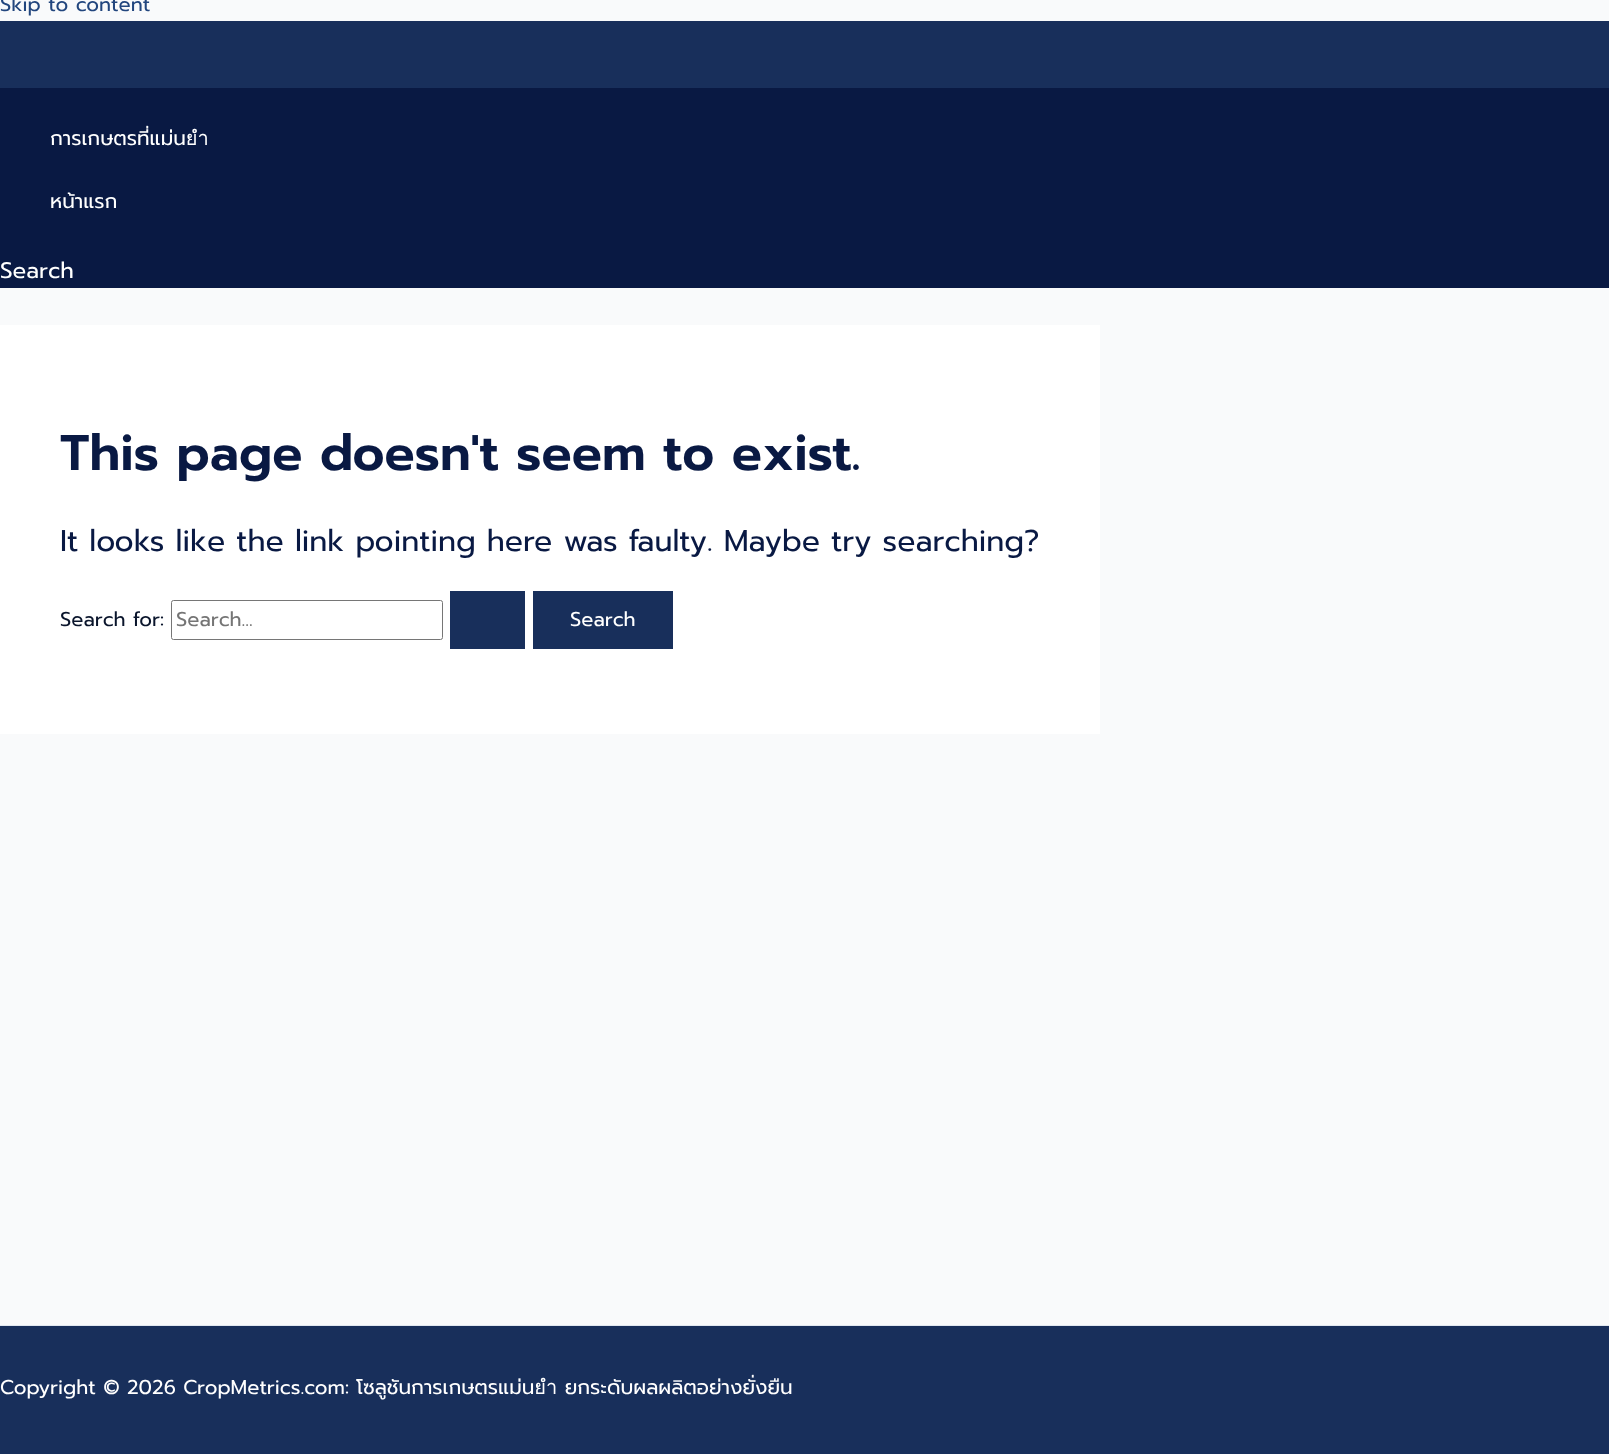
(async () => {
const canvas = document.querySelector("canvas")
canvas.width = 1609
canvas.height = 1454
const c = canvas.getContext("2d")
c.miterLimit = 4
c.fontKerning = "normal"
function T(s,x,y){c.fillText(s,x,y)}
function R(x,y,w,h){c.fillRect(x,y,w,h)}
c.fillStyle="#f9fafb"
R(0,0,1609,1454)
c.font="20px Prompt"
c.fillStyle="#22467e"
T("Skip to content",0,11)
c.fillStyle="#182f5b"
R(0,21,1609,67)
c.fillStyle="#091943"
R(0,88,1609,200)
c.fillStyle="#fff"
T("การเกษตรที่แม่นยำ",50,145)
T("หน้าแรก",50,208)
c.font="22.5px Prompt"
T("Search",0,278)
R(0,325,1100,409)
c.font="600 50px Prompt"
c.fillStyle="#091943"
T("This page doesn't seem to exist.",60,470)
c.font="30px Prompt"
T("It looks like the link pointing here was faulty. Maybe try searching?",60,551)
c.font="20px Prompt"
c.fillStyle="#0a152c"
T("Search for:",60,626)
c.beginPath()
c.roundRect(171.5,600.5,271,39,2)
c.strokeStyle="#767676"
c.stroke()
c.fillStyle="#757575"
T("Search...",176,626)
c.fillStyle="#182f5b"
R(450,591,75,58)
R(533,591,140,58)
c.fillStyle="#fff"
T("Search",570,626)
c.fillStyle="#182f5b"
R(0,1326,1609,128)
c.fillStyle="#e2e8f0"
R(0,1325,1609,1)
c.fillStyle="#fff"
T("Copyright © 2026 CropMetrics.com: โซลูชันการเกษตรแม่นยำ ยกระดับผลผลิตอย่างยั่งยืน",0,1394)
})()
